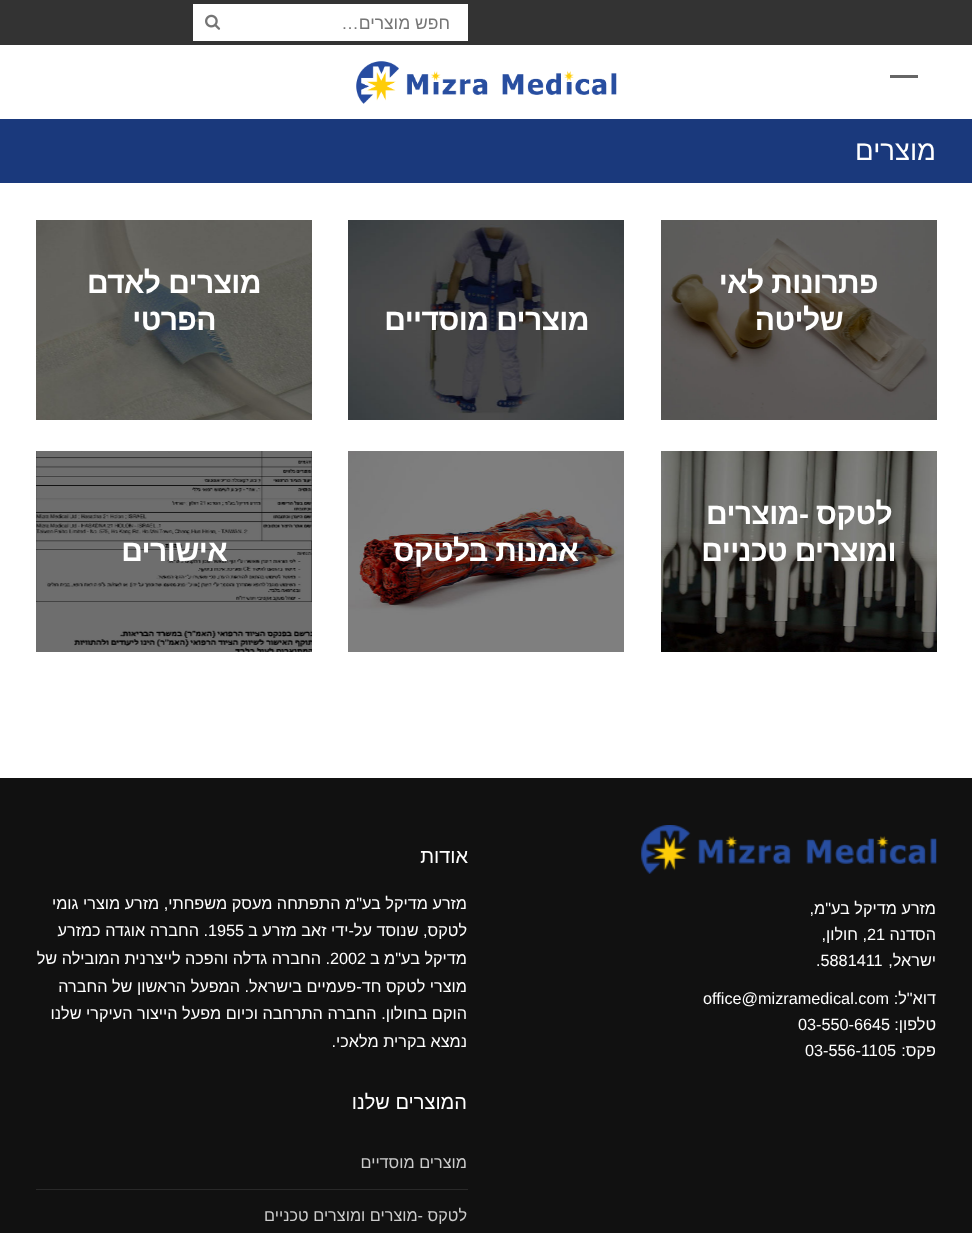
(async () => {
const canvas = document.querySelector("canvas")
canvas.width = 972
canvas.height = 1233
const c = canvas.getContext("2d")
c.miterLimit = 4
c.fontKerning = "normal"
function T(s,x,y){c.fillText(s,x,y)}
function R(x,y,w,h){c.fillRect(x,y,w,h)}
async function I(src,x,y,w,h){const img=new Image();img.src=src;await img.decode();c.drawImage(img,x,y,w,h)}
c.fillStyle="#fff"
R(0,0,972,1233)
c.fillStyle="#333"
R(0,0,972,45)
c.fillStyle="#fff"
R(193,4,275,37)
c.direction="rtl"
c.font="17.5px Liberation Sans"
c.fillStyle="#757575"
T("חפש מוצרים…",450,29)
await I("1.png",205,14,16,16)
c.fillStyle="#666"
R(890,75,28,3)
await I("2.png",356,61,261,43)
c.fillStyle="#1a397c"
R(0,119,972,64)
c.font="27.5px Liberation Sans"
c.fillStyle="#fff"
T("מוצרים",936,160)
await I("3.png",661,220,276,200)
c.letterSpacing="-0.6px"
c.font="bold 30px Liberation Sans"
T("פתרונות לאי",878,293)
T("שליטה",843,330)
await I("4.png",661,451,276,201)
T("לטקס -מוצרים",892,524)
T("ומוצרים טכניים",896,561)
await I("5.png",348,220,276,200)
T("מוצרים מוסדיים",589,330)
await I("6.png",348,451,276,201)
T("אמנות בלטקס",578,561)
await I("7.png",36,220,276,200)
T("מוצרים לאדם",261,293)
T("הפרטי",216,330)
await I("8.png",36,451,276,201)
T("אישורים",227,561)
c.fillStyle="#111"
R(0,778,972,455)
await I("9.png",641,825,296,49)
c.letterSpacing="0px"
c.font="16.25px Liberation Sans"
c.fillStyle="#fff"
T("מזרע מדיקל בע\"מ",936,914)
T(",",814,914)
T("הסדנה",936,940)
c.direction="ltr"
T("21",867,940)
c.direction="rtl"
T(", חולון,",867,940)
T("ישראל,",936,966)
c.direction="ltr"
T(".5881411",816,966)
c.direction="rtl"
T("דוא\"ל:",936,1004)
c.direction="ltr"
T("office@mizramedical.com",703,1004)
c.direction="rtl"
T("טלפון:",936,1030)
c.direction="ltr"
T("03-550-6645",798,1030)
c.direction="rtl"
T("פקס:",936,1056)
c.direction="ltr"
T("03-556-1105",805,1056)
c.direction="rtl"
c.font="20px Liberation Sans"
T("אודות",468,863)
c.font="16.25px Liberation Sans"
T("מזרע מדיקל בע\"מ התפתחה מעסק משפחתי, מזרע מוצרי גומי",467,909)
T("לטקס, שנוסד על-ידי זאב מזרע ב",467,936)
c.direction="ltr"
T("1955",208,936)
c.direction="rtl"
T(". החברה אוגדה כמזרע",208,936)
T("מדיקל בע\"מ ב",467,964)
c.direction="ltr"
T("2002",330,964)
c.direction="rtl"
T(". החברה גדלה והפכה לייצרנית המובילה של",330,964)
T("מוצרי לטקס חד-פעמיים בישראל. המפעל הראשון של החברה",467,992)
T("הוקם בחולון. החברה התרחבה וכיום מפעל הייצור העיקרי שלנו",467,1019)
T("נמצא בקרית מלאכי.",467,1047)
c.font="20px Liberation Sans"
T("המוצרים שלנו",467,1109)
c.fillStyle="#292929"
R(36,1189,432,1)
c.font="16.25px Liberation Sans"
c.fillStyle="#ccc"
T("מוצרים מוסדיים",467,1168)
T("לטקס -מוצרים ומוצרים טכניים",467,1221)
})()
